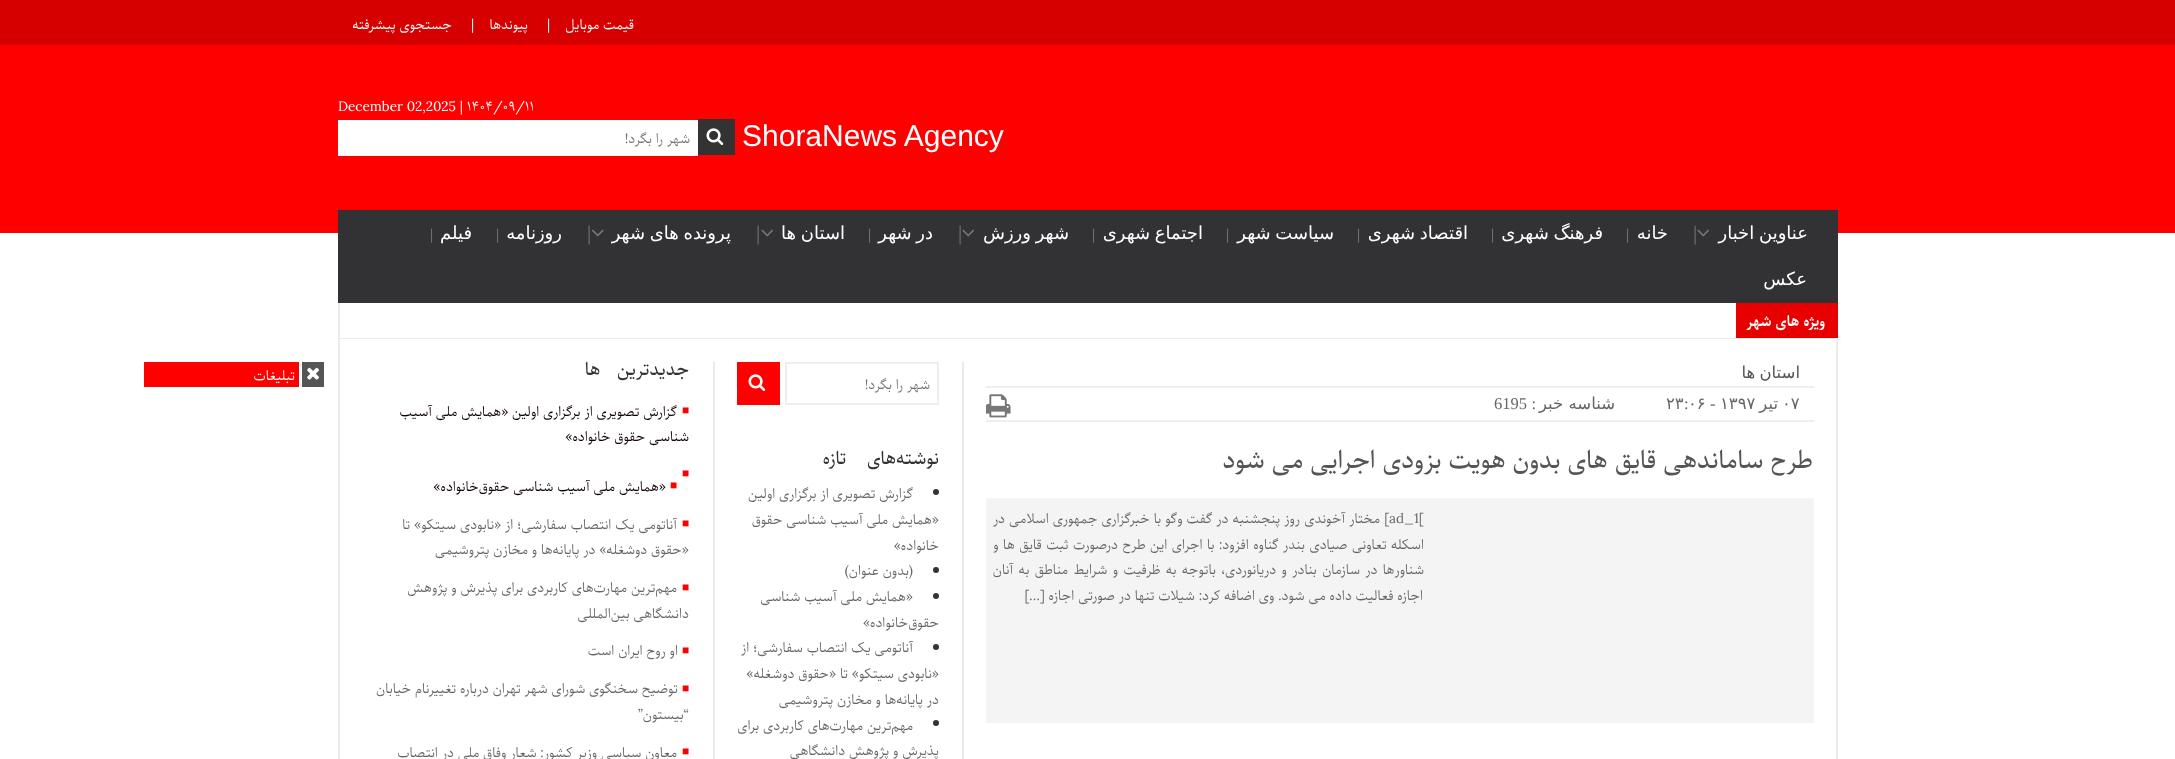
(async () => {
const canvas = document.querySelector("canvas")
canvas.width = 2175
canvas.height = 759
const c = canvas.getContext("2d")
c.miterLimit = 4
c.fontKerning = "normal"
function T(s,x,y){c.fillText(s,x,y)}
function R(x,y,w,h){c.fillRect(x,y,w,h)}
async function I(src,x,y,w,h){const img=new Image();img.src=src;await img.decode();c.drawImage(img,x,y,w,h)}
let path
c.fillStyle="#fff"
R(0,0,2175,759)
c.fillStyle="#f00"
R(0,45,2175,188)
c.fillStyle="#d60000"
R(0,0,2175,45)
c.direction="rtl"
c.font="18px Parastoo"
c.fillStyle="#fff"
T("قیمت موبایل",634,29)
c.direction="ltr"
T("|",547,29)
c.direction="rtl"
T("پیوندها",528,29)
c.direction="ltr"
T("|",471,29)
c.direction="rtl"
T("جستجوی پیشرفته",452,29)
c.direction="ltr"
T("December 02,2025 | ۱۴۰۴/۰۹/۱۱",338,111)
c.font="30px Liberation Sans"
T("ShoraNews Agency",742,146)
c.fillStyle="#333"
R(698,119,37,36)
await I("1.png",706,128,18,17)
c.fillStyle="#fff"
R(338,120,360,36)
c.direction="rtl"
c.font="18px Parastoo"
c.fillStyle="#757575"
T("شهر را بگرد!",690,143)
c.fillStyle="#ebebeb"
R(338,338,1500,1)
R(338,302,2,457)
c.fillStyle="#323234"
path = new Path2D("M338 302v1h1500v-91v90z")
c.fill(path)
R(338,210,1500,92)
c.wordSpacing="-1px"
c.font="18px DejaVu Sans"
c.fillStyle="#fff"
T("عناوین اخبار",1808,239)
await I("2.png",1697,229,12,8)
c.wordSpacing="0px"
c.direction="ltr"
c.font="21px Liberation Serif"
c.fillStyle="#757575"
T("|",1693,240)
c.direction="rtl"
c.font="18px DejaVu Sans"
c.fillStyle="#fff"
T("خانه",1668,239)
c.direction="ltr"
c.font="18px Parastoo"
c.fillStyle="#757575"
T("|",1626,239)
c.wordSpacing="-1px"
c.direction="rtl"
c.font="18px DejaVu Sans"
c.fillStyle="#fff"
T("فرهنگ شهری",1603,239)
c.wordSpacing="0px"
c.direction="ltr"
c.font="18px Parastoo"
c.fillStyle="#757575"
T("|",1491,239)
c.wordSpacing="-1px"
c.direction="rtl"
c.font="18px DejaVu Sans"
c.fillStyle="#fff"
T("اقتصاد شهری",1468,239)
c.wordSpacing="0px"
c.direction="ltr"
c.font="18px Parastoo"
c.fillStyle="#757575"
T("|",1357,239)
c.wordSpacing="-1px"
c.direction="rtl"
c.font="18px DejaVu Sans"
c.fillStyle="#fff"
T("سیاست شهر",1334,239)
c.wordSpacing="0px"
c.direction="ltr"
c.font="18px Parastoo"
c.fillStyle="#757575"
T("|",1226,239)
c.wordSpacing="-1px"
c.direction="rtl"
c.font="18px DejaVu Sans"
c.fillStyle="#fff"
T("اجتماع شهری",1203,239)
c.wordSpacing="0px"
c.direction="ltr"
c.font="18px Parastoo"
c.fillStyle="#757575"
T("|",1092,239)
c.wordSpacing="-1px"
c.direction="rtl"
c.font="18px DejaVu Sans"
c.fillStyle="#fff"
T("شهر ورزش",1069,239)
await I("2.png",962,229,12,8)
c.wordSpacing="0px"
c.direction="ltr"
c.font="21px Liberation Serif"
c.fillStyle="#757575"
T("|",958,240)
c.wordSpacing="-1px"
c.direction="rtl"
c.font="18px DejaVu Sans"
c.fillStyle="#fff"
T("در شهر",933,239)
c.wordSpacing="0px"
c.direction="ltr"
c.font="18px Parastoo"
c.fillStyle="#757575"
T("|",868,239)
c.wordSpacing="-1px"
c.direction="rtl"
c.font="18px DejaVu Sans"
c.fillStyle="#fff"
T("استان ها",845,239)
await I("2.png",761,229,12,8)
c.wordSpacing="0px"
c.direction="ltr"
c.font="21px Liberation Serif"
c.fillStyle="#757575"
T("|",756,240)
c.wordSpacing="-1px"
c.direction="rtl"
c.font="18px DejaVu Sans"
c.fillStyle="#fff"
T("پرونده های شهر",731,239)
await I("3.png",592,229,12,8)
c.wordSpacing="0px"
c.direction="ltr"
c.font="21px Liberation Serif"
c.fillStyle="#757575"
T("|",587,240)
c.direction="rtl"
c.font="18px DejaVu Sans"
c.fillStyle="#fff"
T("روزنامه",562,239)
c.direction="ltr"
c.font="18px Parastoo"
c.fillStyle="#757575"
T("|",496,239)
c.direction="rtl"
c.font="18px DejaVu Sans"
c.fillStyle="#fff"
T("فیلم",472,239)
c.direction="ltr"
c.font="18px Parastoo"
c.fillStyle="#757575"
T("|",430,239)
c.direction="rtl"
c.font="18px DejaVu Sans"
c.fillStyle="#fff"
T("عکس",1807,285)
c.fillStyle="#e70000"
R(1736,303,102,35)
c.font="bold 19.5px Parastoo"
c.fillStyle="#fff"
T("ویژه های شهر",1825,326)
c.fillStyle="#ebebeb"
R(1836,339,2,420)
c.fillStyle="#eee"
R(986,386,828,2)
c.wordSpacing="-1px"
c.font="16.5px DejaVu Sans"
c.fillStyle="#555"
T("استان ها",1800,378)
c.fillStyle="#eee"
R(986,420,828,2)
c.wordSpacing="0px"
c.direction="ltr"
c.fillStyle="#666"
T("۰۷",1782,409)
c.direction="rtl"
T("تیر",1778,409)
c.direction="ltr"
T("۱۳۹۷",1720,409)
c.font="16.5px Liberation Serif"
T("-",1710,409)
c.font="16.5px DejaVu Sans"
T("۰۶",1688,409)
c.font="16.5px Liberation Serif"
T(":",1684,409)
c.font="16.5px DejaVu Sans"
T("۲۳",1666,409)
c.direction="rtl"
T("شناسه خبر",1615,409)
c.font="16.5px Liberation Serif"
T(":",1536,409)
c.direction="ltr"
T("6195",1494,409)
await I("4.png",986,394,25,24)
c.direction="rtl"
c.font="500 33px Parastoo"
c.fillStyle="#555"
T("طرح ساماندهی قایق های بدون هویت بزودی اجرایی می شود",1813,468)
c.fillStyle="#f4f4f4"
R(986,498,828,225)
c.direction="ltr"
c.font="18px Parastoo"
c.fillStyle="#666"
T("ad_1[",1389,523)
c.wordSpacing="0.25px"
c.direction="rtl"
T("] مختار آخوندی روز پنجشنبه در گفت وگو با خبرگزاری جمهوری اسلامی در",1389,523)
c.wordSpacing="0.6px"
T("اسکله تعاونی صیادی بندر گناوه افزود: با اجرای این طرح درصورت ثبت قایق ها و",1424,549)
c.wordSpacing="1.5px"
T("شناورها در سازمان بنادر و دریانوردی، باتوجه به ظرفیت و شرایط مناطق به آنان",1424,574)
c.wordSpacing="0px"
T("اجازه فعالیت داده می شود. وی اضافه کرد: شیلات تنها در صورتی اجازه […]",1423,600)
c.fillStyle="#eaeaea"
R(713,362,2,397)
c.letterSpacing="-1.25px"
c.wordSpacing="13px"
c.font="500 24px Parastoo"
c.fillStyle="#333"
T("جديدترين ها",689,375)
c.letterSpacing="0px"
c.wordSpacing="0px"
c.direction="ltr"
c.font="12px Liberation Serif"
c.fillStyle="#f00"
T("■",682,414)
c.direction="rtl"
c.font="18px Parastoo"
c.fillStyle="#0e0000"
T("گزارش تصویری از برگزاری اولین «همایش ملی آسیب",677,416)
T("شناسی حقوق خانواده»",689,441)
c.direction="ltr"
c.font="12px Liberation Serif"
c.fillStyle="#f00"
T("■",682,477)
T("■",670,489)
c.direction="rtl"
c.font="18px Parastoo"
c.fillStyle="#0e0000"
T("«همایش ملی آسیب شناسی حقوق‌خانواده»",666,491)
c.direction="ltr"
c.font="12px Liberation Serif"
c.fillStyle="#f00"
T("■",682,527)
c.direction="rtl"
c.font="18px Parastoo"
c.fillStyle="#666"
T("آناتومی یک انتصاب سفارشی؛ از «نابودی سیتکو» تا",677,529)
T("«حقوق دوشغله» در پایانه‌ها و مخازن پتروشیمی",689,554)
c.direction="ltr"
c.font="12px Liberation Serif"
c.fillStyle="#f00"
T("■",682,591)
c.direction="rtl"
c.font="18px Parastoo"
c.fillStyle="#666"
T("مهم‌ترین مهارت‌های کاربردی برای پذیرش و پژوهش",677,592)
T("دانشگاهی بین‌المللی",689,618)
c.direction="ltr"
c.font="12px Liberation Serif"
c.fillStyle="#f00"
T("■",682,654)
c.direction="rtl"
c.font="18px Parastoo"
c.fillStyle="#666"
T("او روح ایران است",678,655)
c.direction="ltr"
c.font="12px Liberation Serif"
c.fillStyle="#f00"
T("■",682,692)
c.direction="rtl"
c.font="18px Parastoo"
c.fillStyle="#666"
T("توضیح سخنگوی شورای شهر تهران درباره تغییرنام خیابان",678,693)
T("“بیستون”",689,719)
c.direction="ltr"
c.font="12px Liberation Serif"
c.fillStyle="#f00"
T("■",682,755)
c.direction="rtl"
c.font="18px Parastoo"
c.fillStyle="#666"
T("معاون سیاسی وزیر کشور: شعار وفاق ملی در انتصاب",677,757)
c.fillStyle="#f00"
R(144,362,155,25)
c.fillStyle="#555"
R(302,362,22,25)
await I("5.png",307,367,12,13)
c.fillStyle="#fff"
T("تبلیغات",295,380)
c.fillStyle="#eaeaea"
R(962,362,2,397)
c.strokeStyle="#eee"
c.lineWidth=2
c.strokeRect(786,363,152,41)
c.fillStyle="#757575"
T("شهر را بگرد!",930,389)
c.fillStyle="#f00"
R(737,362,43,43)
await I("6.png",748,374,18,17)
c.letterSpacing="-1.25px"
c.wordSpacing="17px"
c.font="500 24px Parastoo"
c.fillStyle="#333"
T("نوشته‌های تازه",939,464)
c.beginPath()
c.arc(936,492,3,0,7)
c.fill()
c.letterSpacing="0px"
c.wordSpacing="0px"
c.font="18px Parastoo"
c.fillStyle="#666"
T("گزارش تصویری از برگزاری اولین",913,498)
T("«همایش ملی آسیب شناسی حقوق",939,524)
T("خانواده»",939,550)
c.fillStyle="#333"
c.beginPath()
c.arc(936,570,3,0,7)
c.fill()
c.fillStyle="#666"
T("(بدون عنوان)",913,575)
c.fillStyle="#333"
c.beginPath()
c.arc(936,596,3,0,7)
c.fill()
c.fillStyle="#666"
T("«همایش ملی آسیب شناسی",913,601)
T("حقوق‌خانواده»",939,627)
c.fillStyle="#333"
c.beginPath()
c.arc(936,647,3,0,7)
c.fill()
c.fillStyle="#666"
T("آناتومی یک انتصاب سفارشی؛ از",913,652)
T("«نابودی سیتکو» تا «حقوق دوشغله»",939,678)
T("در پایانه‌ها و مخازن پتروشیمی",939,704)
c.fillStyle="#333"
c.beginPath()
c.arc(936,723,3,0,7)
c.fill()
c.fillStyle="#666"
T("مهم‌ترین مهارت‌های کاربردی برای",913,730)
T("پذیرش و پژوهش دانشگاهی",939,755)
})()
